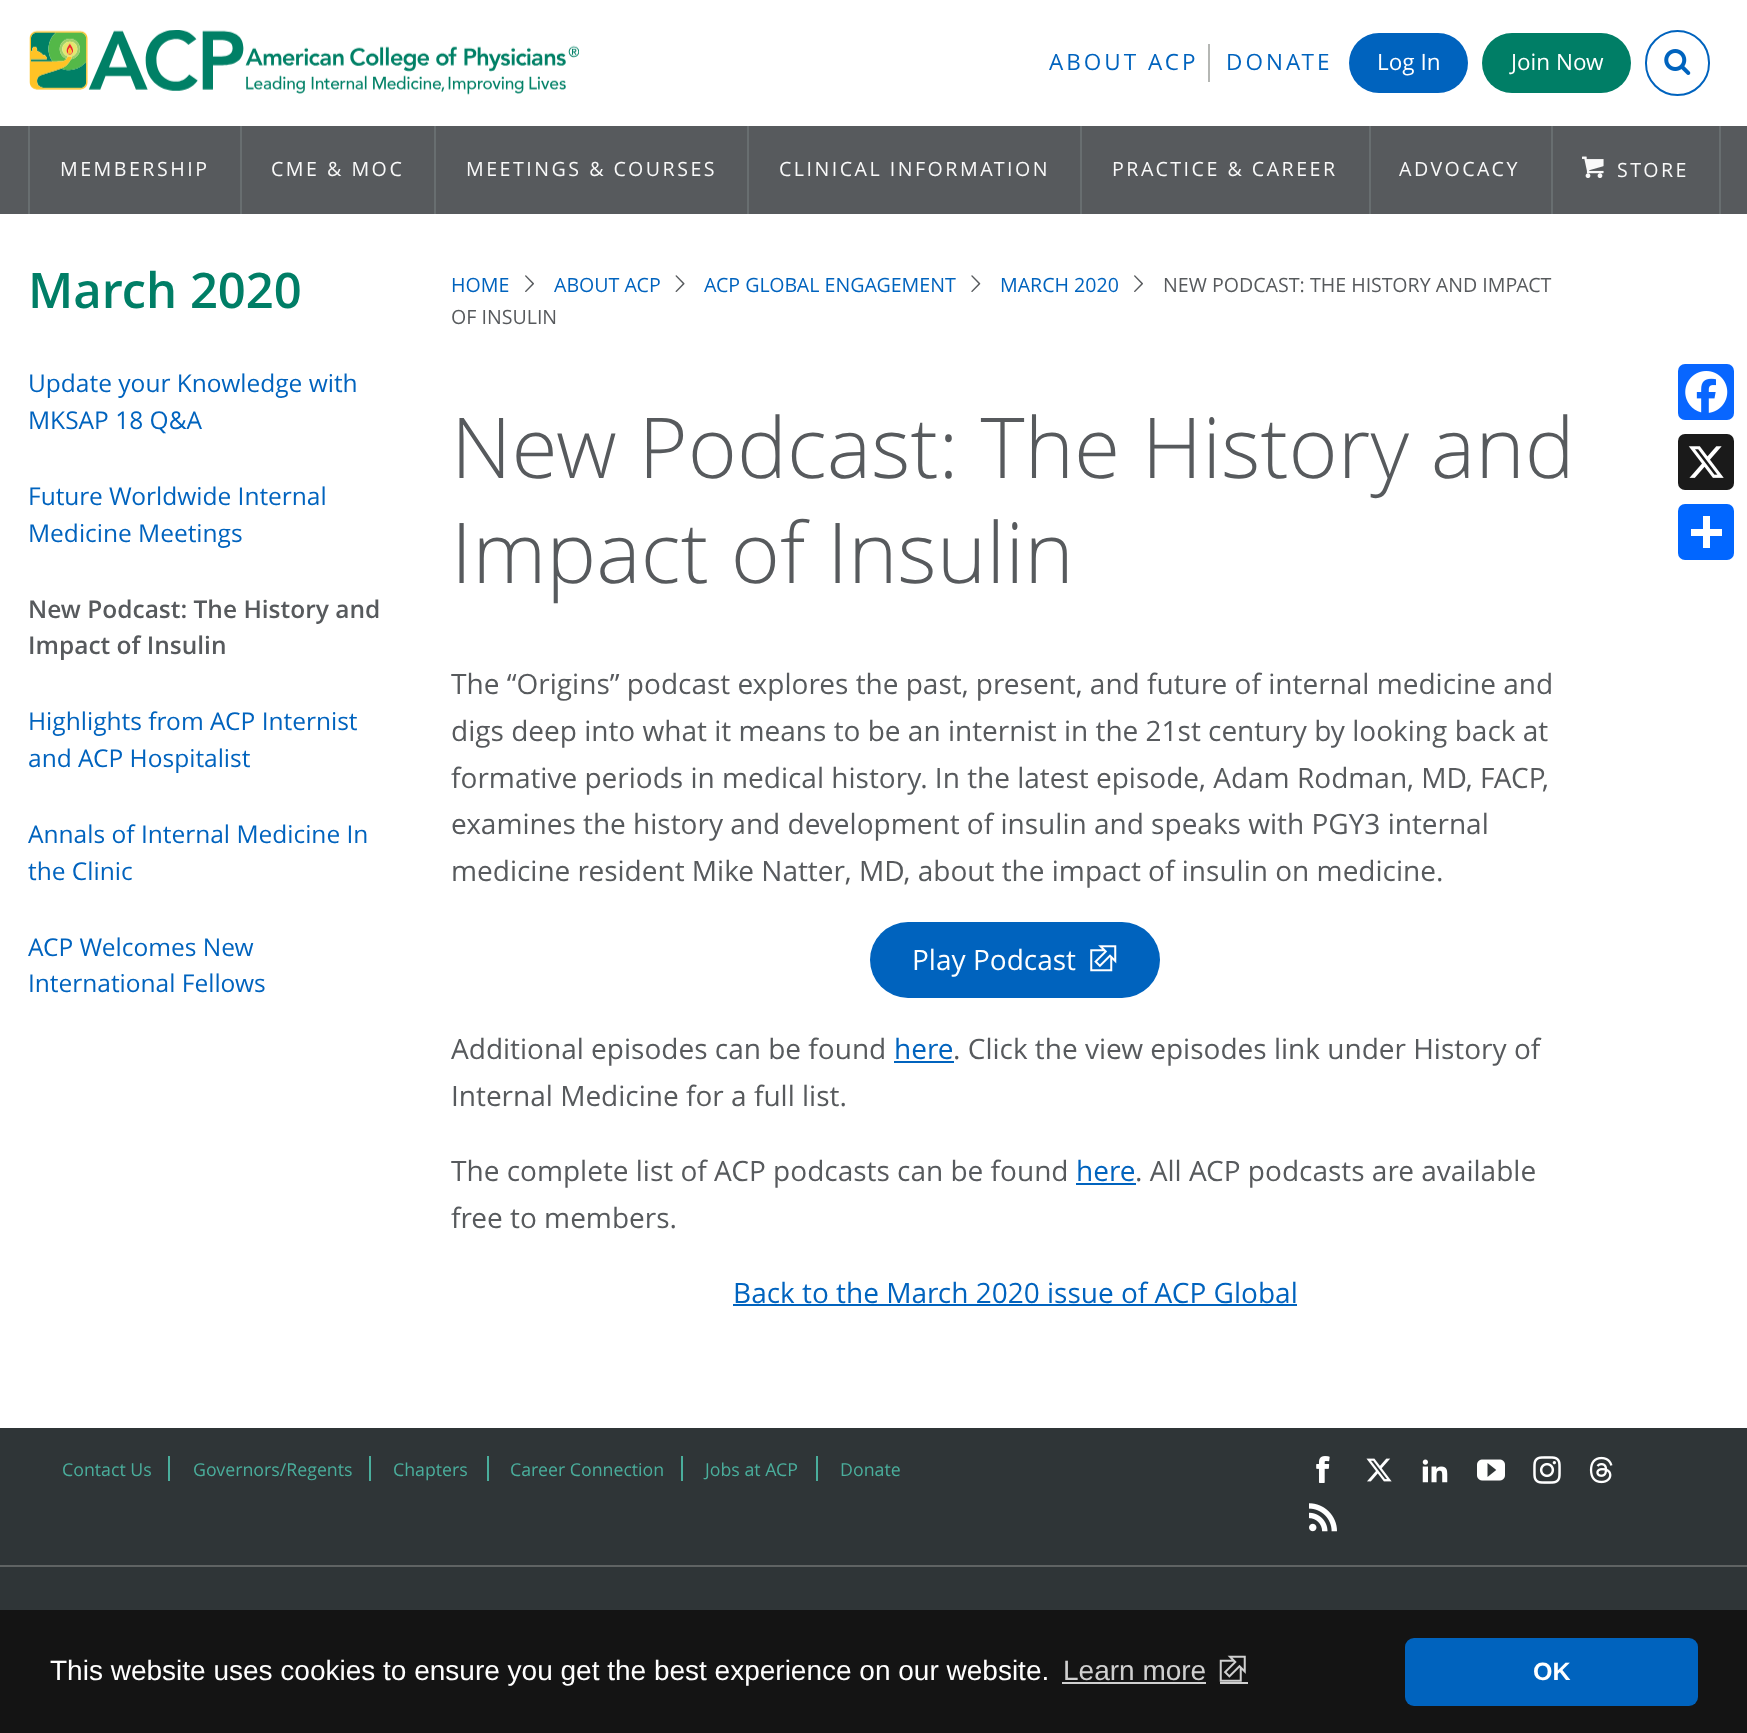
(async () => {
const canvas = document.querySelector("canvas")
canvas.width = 1747
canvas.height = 1733
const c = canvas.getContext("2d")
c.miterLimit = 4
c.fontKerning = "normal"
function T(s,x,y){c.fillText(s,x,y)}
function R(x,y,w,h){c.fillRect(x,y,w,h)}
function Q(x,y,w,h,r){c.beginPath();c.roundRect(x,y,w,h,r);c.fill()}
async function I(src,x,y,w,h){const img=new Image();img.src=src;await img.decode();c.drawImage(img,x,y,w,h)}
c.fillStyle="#fff"
R(0,0,1747,1733)
await I("1.png",29,30,550,65)
c.fillStyle="#b5b7b4"
R(1208,44,2,38)
c.letterSpacing="3px"
c.font="22.5px Open Sans"
c.fillStyle="#0063be"
T("ABOUT ACP",1049,70)
T("DONATE",1226,70)
Q(1349,33,119,60,30)
c.letterSpacing="0px"
c.fillStyle="#fff"
T("Log In",1377,70)
c.fillStyle="#007e66"
Q(1482,33,149,60,30)
c.fillStyle="#fff"
T("Join Now",1511,70)
c.beginPath()
c.roundRect(1646,31,63,64,31.5)
c.strokeStyle="#0063be"
c.lineWidth=2
c.stroke()
await I("2.png",1664,49,27,26)
c.fillStyle="#575a5d"
R(0,126,1747,88)
c.fillStyle="#686e70"
R(240,126,2,88)
R(28,126,2,88)
c.letterSpacing="2.5px"
c.font="19.6px Open Sans"
c.fillStyle="#f9f9f9"
T("MEMBERSHIP",60,176)
c.fillStyle="#686e70"
R(434,126,2,88)
c.fillStyle="#f9f9f9"
T("CME & MOC",271,176)
c.fillStyle="#686e70"
R(747,126,2,88)
c.fillStyle="#f9f9f9"
T("MEETINGS & COURSES",466,176)
c.fillStyle="#686e70"
R(1080,126,2,88)
c.fillStyle="#f9f9f9"
T("CLINICAL INFORMATION",779,176)
c.fillStyle="#686e70"
R(1369,126,2,88)
c.fillStyle="#f9f9f9"
T("PRACTICE & CAREER",1112,176)
c.fillStyle="#686e70"
R(1551,126,2,88)
c.fillStyle="#f9f9f9"
T("ADVOCACY",1399,176)
c.fillStyle="#686e70"
R(1719,126,2,88)
await I("3.png",1582,156,22,22)
c.fillStyle="#f9f9f9"
T("STORE",1617,177)
c.letterSpacing="0px"
c.font="600 49px Open Sans"
c.fillStyle="#007e66"
T("March 2020",28,308)
c.font="24.5px Open Sans"
c.fillStyle="#0063be"
T("Update your Knowledge with",28,392)
T("MKSAP 18 Q&A",28,429)
T("Future Worldwide Internal",28,505)
T("Medicine Meetings",28,542)
c.font="600 24.5px Open Sans"
c.fillStyle="#575a5d"
T("New Podcast: The History and",28,618)
T("Impact of Insulin",28,654)
c.font="24.5px Open Sans"
c.fillStyle="#0063be"
T("Highlights from ACP Internist",28,730)
T("and ACP Hospitalist",28,767)
T("Annals of Internal Medicine In",28,843)
T("the Clinic",28,880)
T("ACP Welcomes New",28,956)
T("International Fellows",28,992)
c.font="19.6px Open Sans"
T("HOME",451,292)
await I("4.png",525,275,9,17)
T("ABOUT ACP",554,292)
await I("5.png",675,275,10,17)
T("ACP GLOBAL ENGAGEMENT",704,292)
await I("6.png",971,275,10,17)
T("MARCH 2020",1000,292)
await I("4.png",1134,275,9,17)
c.fillStyle="#575a5d"
T("NEW PODCAST: THE HISTORY AND IMPACT",1163,292)
T("OF INSULIN",451,324)
c.font="300 84px Open Sans"
T("New Podcast: The History and",451,478)
T("Impact of Insulin",451,583)
c.fillStyle="#0866ff"
Q(1678,364,56,56,7)
await I("7.png",1685,371,43,42)
c.fillStyle="#1a1a1a"
Q(1678,434,56,56,7)
await I("8.png",1688,446,36,32)
c.fillStyle="#0166ff"
Q(1678,504,56,56,7)
c.fillStyle="#fff"
R(1703,516,7,32)
R(1691,529,31,7)
c.font="28px Open Sans"
c.fillStyle="#575a5d"
T("The “Origins” podcast explores the past, present, and future of internal medicine and",451,694)
T("digs deep into what it means to be an internist in the 21st century by looking back at",451,741)
T("formative periods in medical history. In the latest episode, Adam Rodman, MD, FACP,",451,788)
T("examines the history and development of insulin and speaks with PGY3 internal",451,834)
T("medicine resident Mike Natter, MD, about the impact of insulin on medicine.",451,881)
c.fillStyle="#0063be"
Q(870,922,290,76,38)
c.fillStyle="#fff"
T("Play Podcast",912,970)
await I("9.png",1090,945,27,27)
c.fillStyle="#575a5d"
T("Additional episodes can be found",451,1059)
c.fillStyle="#0063be"
T("here",894,1059)
R(894,1061,60,2)
c.fillStyle="#575a5d"
T(". Click the view episodes link under History of",953,1059)
T("Internal Medicine for a full list.",451,1106)
T("The complete list of ACP podcasts can be found",451,1181)
c.fillStyle="#0063be"
T("here",1076,1181)
R(1076,1183,60,2)
c.fillStyle="#575a5d"
T(". All ACP podcasts are available",1135,1181)
T("free to members.",451,1228)
c.fillStyle="#0063be"
T("Back to the March 2020 issue of ACP Global",733,1303)
R(733,1304,564,2)
c.fillStyle="#2f3537"
R(0,1428,1747,182)
c.font="17.75px Open Sans"
c.fillStyle="#4aae9c"
T("Contact Us",62,1476)
R(168,1456,2,25)
T("Governors/Regents",193,1476)
R(369,1456,2,25)
T("Chapters",393,1476)
R(487,1456,2,25)
T("Career Connection",510,1476)
R(681,1456,2,25)
T("Jobs at ACP",705,1476)
R(816,1456,2,25)
T("Donate",840,1476)
await I("10.png",1316,1456,14,27)
await I("11.png",1366,1458,26,24)
await I("12.png",1422,1459,26,24)
await I("13.png",1477,1459,28,22)
await I("14.png",1533,1456,28,28)
await I("15.png",1589,1456,24,28)
await I("16.png",1309,1503,28,29)
c.fillStyle="#5f6363"
R(0,1565,1747,2)
c.fillStyle="#141414"
R(0,1610,1747,123)
c.font="28px Liberation Sans"
c.fillStyle="#fff"
T("This website uses cookies to ensure you get the best experience on our website.",50,1680)
c.fillStyle="#d0d0d0"
T("Learn more",1063,1680)
R(1062,1682,144,2)
await I("17.png",1219,1655,27,27)
R(1220,1682,28,2)
c.fillStyle="#0063be"
Q(1405,1638,293,68,9)
c.font="bold 25px Liberation Sans"
c.fillStyle="#fff"
T("OK",1533,1680)
})()
